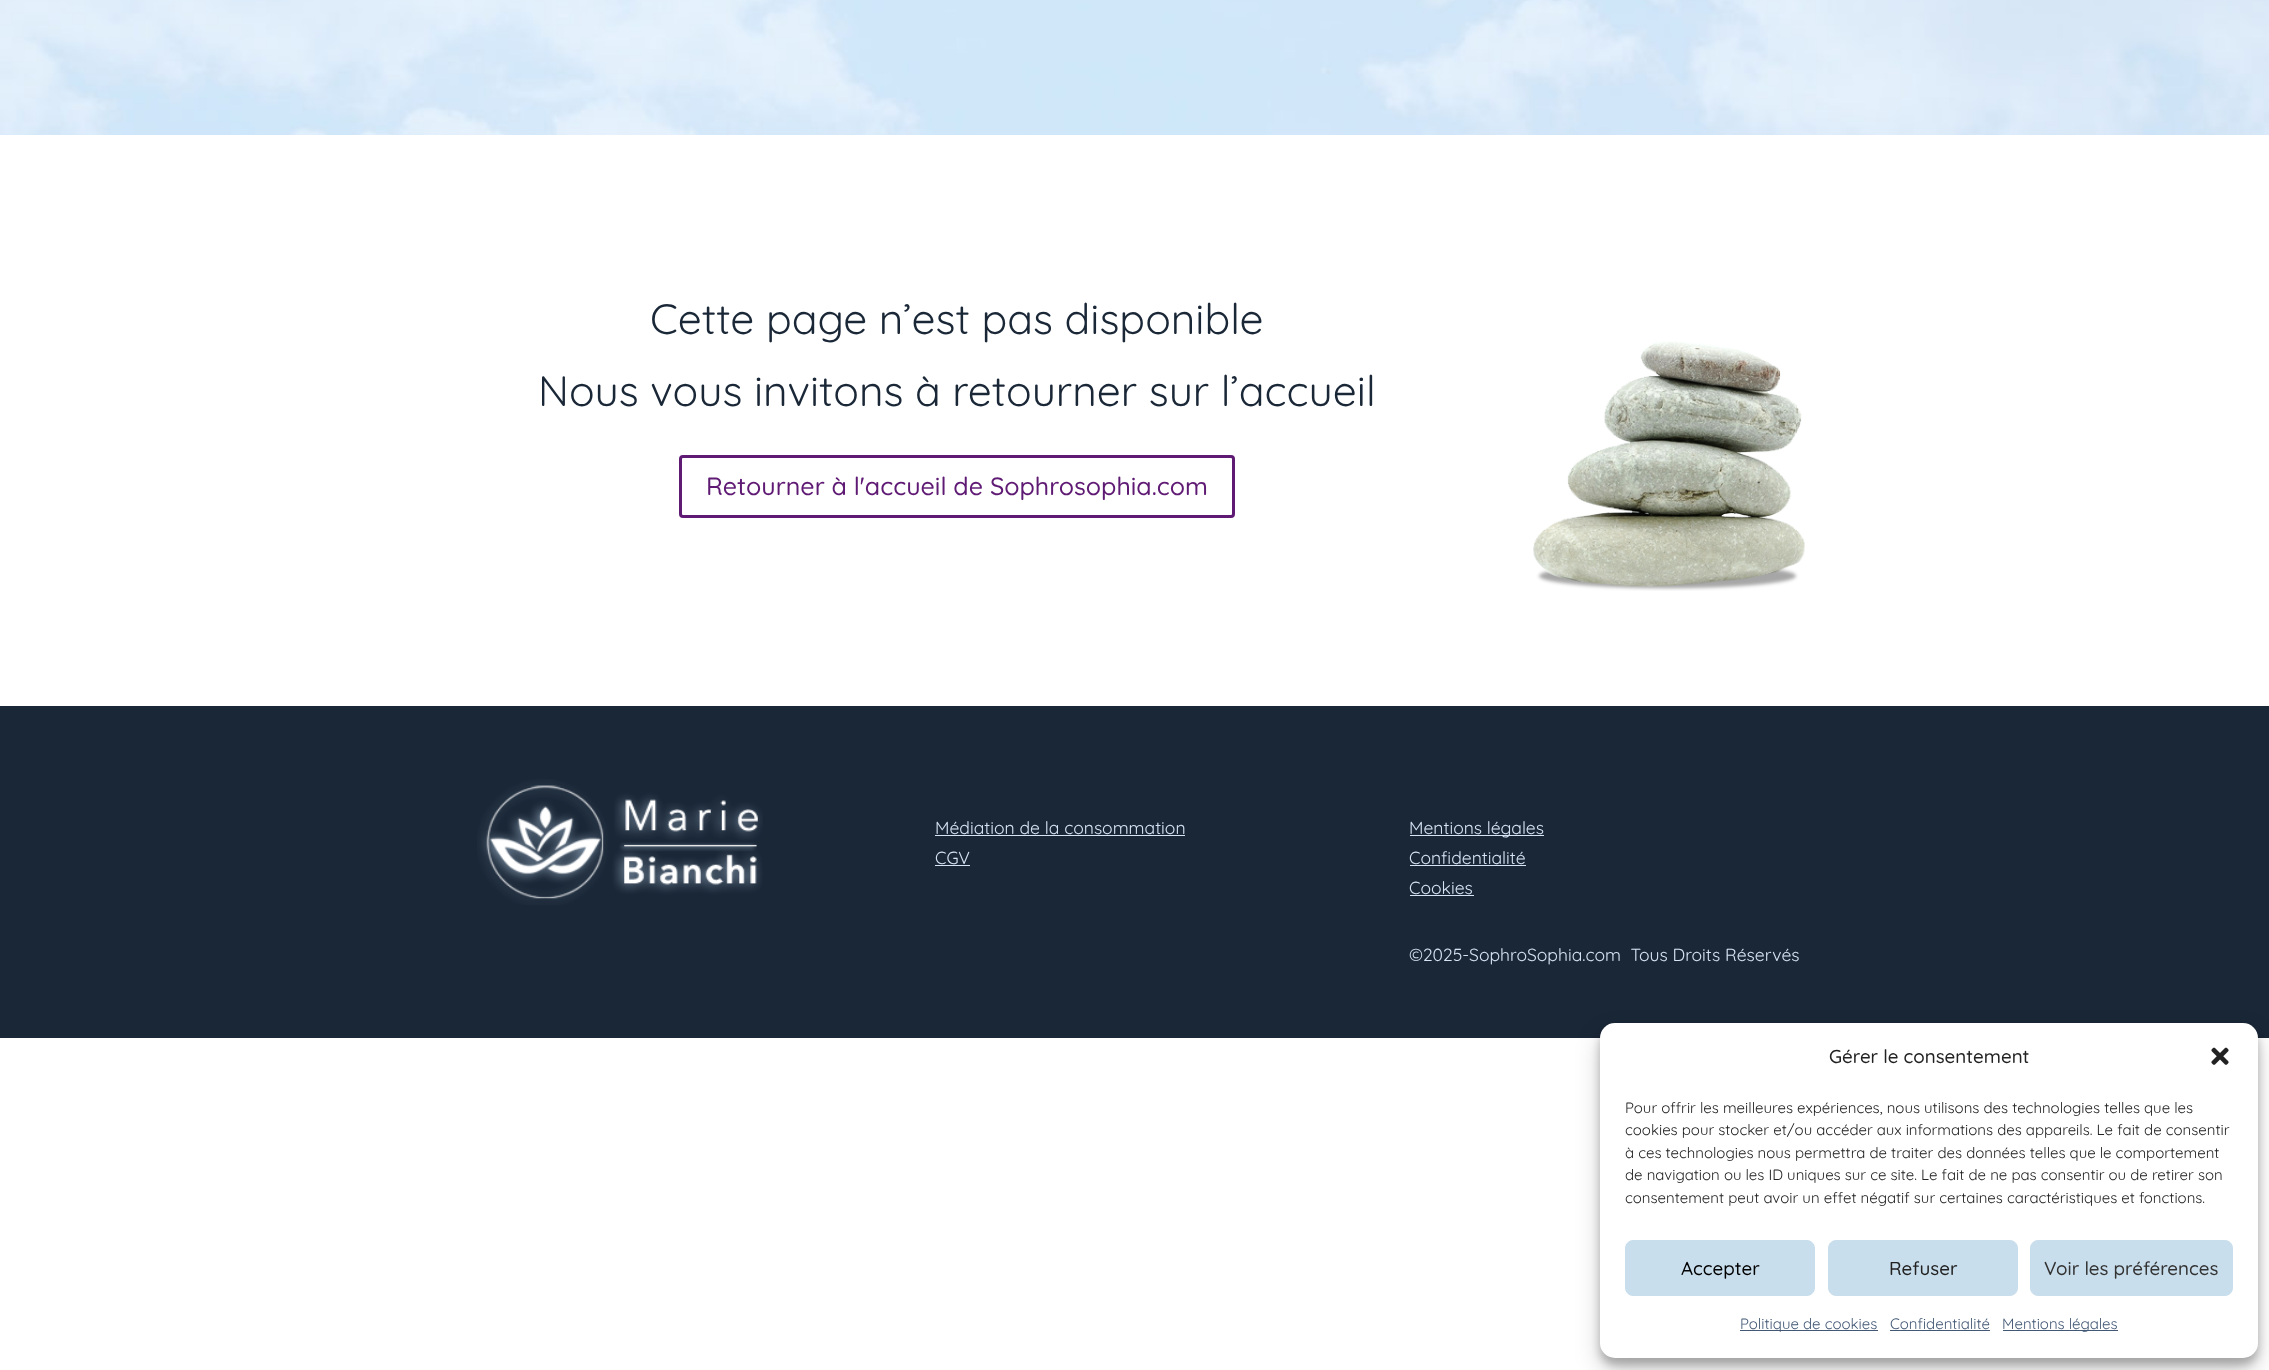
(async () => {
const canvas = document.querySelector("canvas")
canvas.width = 2269
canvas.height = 1370
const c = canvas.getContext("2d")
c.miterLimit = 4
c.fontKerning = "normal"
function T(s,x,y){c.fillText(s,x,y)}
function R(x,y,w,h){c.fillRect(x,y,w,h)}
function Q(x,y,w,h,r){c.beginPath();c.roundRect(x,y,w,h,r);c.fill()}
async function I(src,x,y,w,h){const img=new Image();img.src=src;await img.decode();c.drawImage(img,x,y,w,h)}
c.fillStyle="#fff"
R(0,0,2269,1370)
await I("1.png",0,0,2269,135)
c.font="42.5px Quicksand"
c.fillStyle="#1a2737"
T("Cette page n’est pas disponible",650,334)
T("Nous vous invitons à retourner sur l’accueil",538,406)
c.beginPath()
c.roundRect(680.5,456.5,553,60,2.5)
c.strokeStyle="#5f1a74"
c.lineWidth=3
c.stroke()
c.font="500 25px Quicksand"
c.fillStyle="#5f1a74"
T("Retourner à l'accueil de Sophrosophia.com",706,495)
await I("2.png",1533,341,272,250)
c.fillStyle="#1a2737"
R(0,706,2269,332)
await I("3.png",477,779,286,126)
c.font="17.5px Quicksand"
c.fillStyle="#d7e4f5"
T("Médiation de la consommation",935,834)
R(935,835,250,1)
T("CGV",935,864)
R(935,865,35,1)
R(1410,835,134,1)
T("Mentions légales",1409,834)
T("Confidentialité",1409,864)
R(1410,865,116,1)
T("Cookies",1409,894)
R(1410,895,64,1)
T("©2025-SophroSophia.com  Tous Droits Réservés",1409,961)
c.fillStyle="#0000003b"
c.filter="blur(4px)"
c.beginPath()
c.roundRect(1600,1030,658,335,15)
c.fill()
c.filter="none"
c.fillStyle="#00000030"
c.filter="blur(12.5px)"
c.beginPath()
c.roundRect(1600,1035,658,335,15)
c.fill()
c.filter="none"
c.fillStyle="#fff"
Q(1600,1023,658,335,15)
c.font="500 18.75px Quicksand"
c.fillStyle="#222"
T("Gérer le consentement",1829,1063)
await I("4.png",2211,1047,18,18)
c.font="15px Quicksand"
T("Pour offrir les meilleures expériences, nous utilisons des technologies telles que les",1625,1113)
T("cookies pour stocker et/ou accéder aux informations des appareils. Le fait de consentir",1625,1135)
T("à ces technologies nous permettra de traiter des données telles que le comportement",1625,1158)
T("de navigation ou les ID uniques sur ce site. Le fait de ne pas consentir ou de retirer son",1625,1180)
T("consentement peut avoir un effet négatif sur certaines caractéristiques et fonctions.",1625,1203)
c.fillStyle="#c9deec"
c.beginPath()
c.roundRect(1625.5,1240.5,189,55,7.5)
c.fill()
c.strokeStyle="#c9deec"
c.lineWidth=1
c.stroke()
c.font="500 18.75px Quicksand"
c.fillStyle="#000"
T("Accepter",1681,1275)
c.fillStyle="#c9deec"
c.beginPath()
c.roundRect(1828.5,1240.5,189,55,7.5)
c.fill()
c.stroke()
c.fillStyle="#222"
T("Refuser",1889,1275)
c.fillStyle="#c9deec"
c.beginPath()
c.roundRect(2030.5,1240.5,202,55,7.5)
c.fill()
c.stroke()
c.fillStyle="#333"
T("Voir les préférences",2044,1275)
c.fillStyle="#425875"
R(1740,1330,138,1)
c.font="15px Quicksand"
T("Politique de cookies",1740,1329)
T("Confidentialité",1890,1329)
R(1890,1330,100,1)
R(2003,1330,115,1)
T("Mentions légales",2002,1329)
})()
